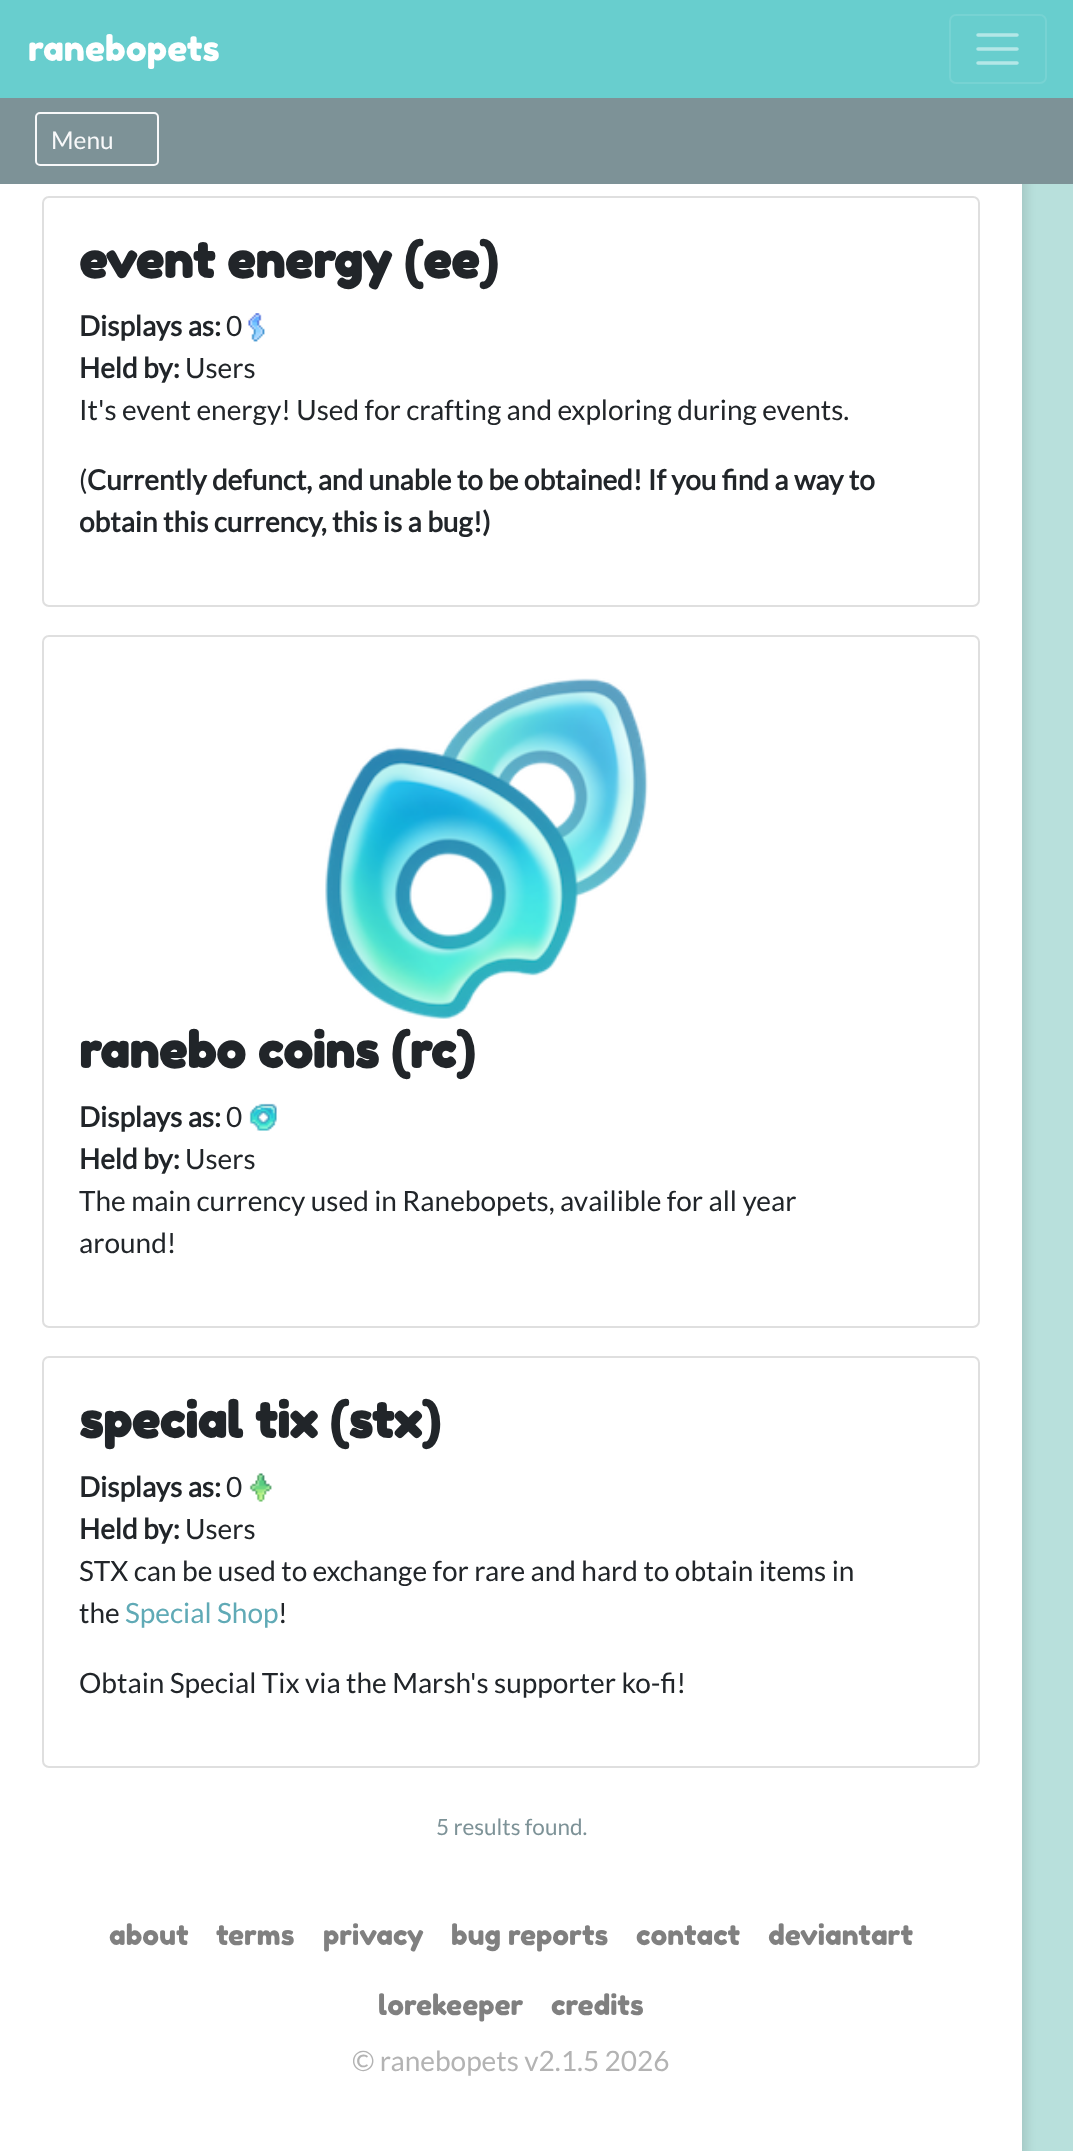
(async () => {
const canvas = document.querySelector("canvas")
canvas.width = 1073
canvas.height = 2151
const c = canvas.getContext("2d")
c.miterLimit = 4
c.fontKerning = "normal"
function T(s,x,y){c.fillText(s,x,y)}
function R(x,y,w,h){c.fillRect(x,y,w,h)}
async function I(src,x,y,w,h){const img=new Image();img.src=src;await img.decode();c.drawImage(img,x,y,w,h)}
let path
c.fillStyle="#b8e0dc"
R(0,0,1073,2151)
c.fillStyle="#0000001a"
c.filter="blur(5px)"
c.beginPath()
c.rect(-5,-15,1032,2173)
c.fill()
c.filter="none"
c.fillStyle="#68cece"
R(0,0,1073,98)
c.font="35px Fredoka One"
c.fillStyle="#fff"
T("ranebopets",28,61)
c.beginPath()
c.roundRect(950,15,96,68,6)
c.strokeStyle="#77d3d3"
c.lineWidth=2
c.stroke()
path = new Path2D("M978 35h39m-39 14h39m-39 14h39")
c.strokeStyle="#b4e7e7"
c.lineWidth=3.5
c.lineCap="round"
c.stroke(path)
c.fillStyle="#7d9297"
R(0,98,1073,86)
c.beginPath()
c.roundRect(36,113,122,52,4)
c.strokeStyle="#f8f9fa"
c.lineWidth=2
c.stroke()
c.font="24.5px Lato"
c.fillStyle="#f8f9fa"
T("Menu",51,149)
c.fillStyle="#fff"
R(0,184,1022,1967)
c.beginPath()
c.roundRect(43,197,936,409,6)
c.strokeStyle="#dfdfdf"
c.stroke()
c.font="bold 49px Fredoka One"
c.fillStyle="#212529"
T("event energy (ee)",79,278)
c.font="bold 28px Lato"
T("Displays as:",79,336)
c.font="28px Lato"
T("0",226,336)
await I("1.png",248,313,17,29)
c.font="bold 28px Lato"
T("Held by:",79,378)
c.font="28px Lato"
T("Users",185,378)
T("It's event energy! Used for crafting and exploring during events.",79,420)
T("(",79,490)
c.font="bold 28px Lato"
T("Currently defunct, and unable to be obtained! If you find a way to",87,490)
T("obtain this currency, this is a bug!)",79,532)
c.beginPath()
c.roundRect(43,636,936,691,6)
c.stroke()
await I("2.png",325,678,323,341)
c.font="bold 49px Fredoka One"
T("ranebo coins (rc)",79,1068)
c.font="bold 28px Lato"
T("Displays as:",79,1127)
c.font="28px Lato"
T("0",226,1127)
await I("3.png",249,1103,28,28)
c.font="bold 28px Lato"
T("Held by:",79,1169)
c.font="28px Lato"
T("Users",185,1169)
T("The main currency used in Ranebopets, availible for all year",79,1211)
T("around!",79,1253)
c.beginPath()
c.roundRect(43,1357,936,410,6)
c.stroke()
c.font="bold 49px Fredoka One"
T("special tix (stx)",79,1438)
c.font="bold 28px Lato"
T("Displays as:",79,1497)
c.font="28px Lato"
T("0",226,1497)
await I("4.png",249,1473,23,29)
c.font="bold 28px Lato"
T("Held by:",79,1539)
c.font="28px Lato"
T("Users",185,1539)
T("STX can be used to exchange for rare and hard to obtain items in",79,1581)
T("the",79,1623)
c.fillStyle="#60aab6"
T("Special Shop",125,1623)
c.fillStyle="#212529"
T("!",278,1623)
T("Obtain Special Tix via the Marsh's supporter ko-fi!",79,1693)
c.font="22.5px Lato"
c.fillStyle="#7d9297"
T("5 results found.",436,1835)
c.font="28px Fredoka One"
c.fillStyle="#808080"
T("about",109,1945)
T("terms",216,1945)
T("privacy",323,1945)
T("bug reports",451,1945)
T("contact",636,1945)
T("deviantart",768,1945)
T("lorekeeper",378,2015)
T("credits",551,2015)
c.font="28px Lato"
c.fillStyle="#b3b3b3"
T("© ranebopets v2.1.5 2026",352,2071)
})()
